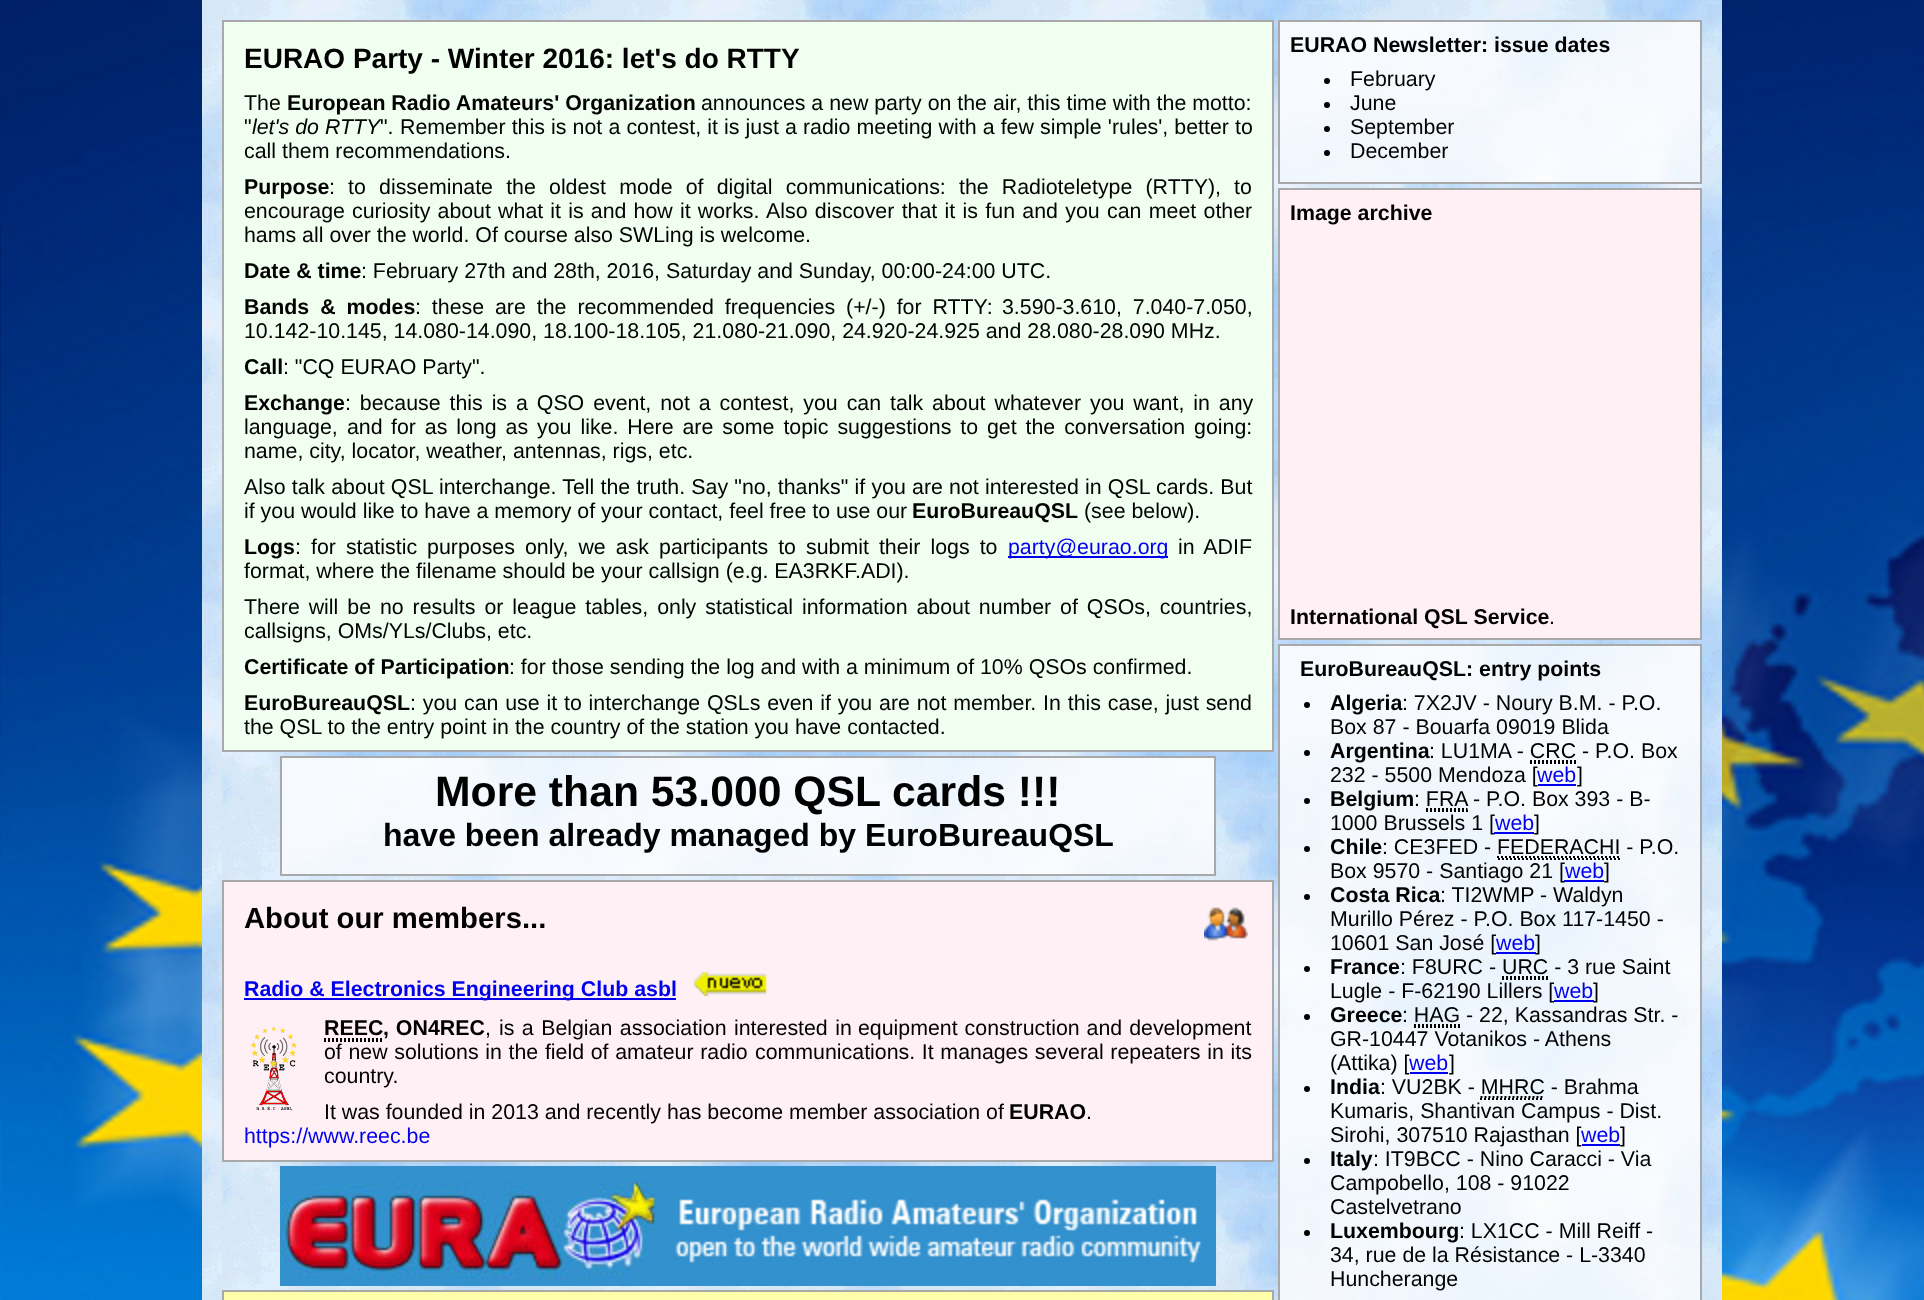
(async () => {
const canvas = document.querySelector("canvas")
canvas.width = 1924
canvas.height = 1300
const c = canvas.getContext("2d")
c.miterLimit = 4
c.fontKerning = "normal"
function T(s,x,y){c.fillText(s,x,y)}
function R(x,y,w,h){c.fillRect(x,y,w,h)}
async function I(src,x,y,w,h){const img=new Image();img.src=src;await img.decode();c.drawImage(img,x,y,w,h)}
let path
c.fillStyle="#fff"
R(0,0,1924,1300)
await I("1.png",0,0,1924,1300)
await I("2.png",202,0,1520,1300)
await I("3.png",222,20,1480,1280)
c.fillStyle="#f0fff0"
c.beginPath()
c.rect(223,21,1050,730)
c.fill()
c.strokeStyle="#a9a9a9"
c.lineWidth=2
c.stroke()
c.font="bold 28px Liberation Sans"
c.fillStyle="#000"
T("EURAO Party - Winter 2016: let's do RTTY",244,68)
c.font="21.35px Liberation Sans"
T("The",244,110)
c.font="bold 21.35px Liberation Sans"
T("European Radio Amateurs' Organization",287,110)
c.font="21.35px Liberation Sans"
T("announces a new party on the air, this time with the motto:",701,110)
T("\"",244,134)
c.font="italic 21.35px Liberation Sans"
T("let's do RTTY",252,134)
c.font="21.35px Liberation Sans"
T("\".",380,134)
c.wordSpacing="0.2px"
T("Remember this is not a contest, it is just a radio meeting with a few simple 'rules', better to",400,134)
c.wordSpacing="0px"
T("call them recommendations.",244,158)
c.font="bold 21.35px Liberation Sans"
T("Purpose",244,194)
c.wordSpacing="7.25px"
c.font="21.35px Liberation Sans"
T(": to disseminate the oldest mode of digital communications: the Radioteletype (RTTY),",329,194)
c.wordSpacing="0px"
T("to",1234,194)
c.wordSpacing="1.25px"
T("encourage curiosity about what it is and how it works.",244,218)
c.wordSpacing="1.4px"
T("Also discover that it is fun and you can meet other",766,218)
c.wordSpacing="0px"
T("hams all over the world. Of course also SWLing is welcome.",244,242)
c.font="bold 21.35px Liberation Sans"
T("Date & time",244,278)
c.font="21.35px Liberation Sans"
T(": February 27th and 28th, 2016, Saturday and Sunday, 00:00-24:00 UTC.",361,278)
c.wordSpacing="5px"
c.font="bold 21.35px Liberation Sans"
T("Bands & modes",244,314)
c.font="21.35px Liberation Sans"
T(": these are the recommended frequencies (+/-) for RTTY:",415,314)
T("3.590-3.610, 7.040-7.050,",1002,314)
c.wordSpacing="0px"
T("10.142-10.145, 14.080-14.090, 18.100-18.105, 21.080-21.090, 24.920-24.925 and 28.080-28.090 MHz.",244,338)
c.font="bold 21.35px Liberation Sans"
T("Call",244,374)
c.font="21.35px Liberation Sans"
T(": \"CQ EURAO Party\".",283,374)
c.font="bold 21.35px Liberation Sans"
T("Exchange",244,410)
c.wordSpacing="3px"
c.font="21.35px Liberation Sans"
T(": because this is a QSO event, not a contest, you can talk about whatever you want, in any",345,410)
c.wordSpacing="0px"
T("language,",244,434)
T("and",347,434)
c.wordSpacing="3px"
T("for as long as you like. Here are some topic suggestions to get the conversation going:",391,434)
c.wordSpacing="0px"
T("name, city, locator, weather, antennas, rigs, etc.",244,458)
c.wordSpacing="0.3px"
T("Also talk about QSL interchange. Tell the truth. Say \"no, thanks\" if you are not interested in QSL cards. But",244,494)
c.wordSpacing="0px"
T("if you would like to have a memory of your contact, feel free to use our",244,518)
c.font="bold 21.35px Liberation Sans"
T("EuroBureauQSL",912,518)
c.font="21.35px Liberation Sans"
T("(see below).",1084,518)
c.font="bold 21.35px Liberation Sans"
T("Logs",244,554)
c.wordSpacing="4.1px"
c.font="21.35px Liberation Sans"
T(": for statistic purposes only, we ask participants to submit their logs to",295,554)
c.fillStyle="#00e"
R(1008,556,160,2)
c.wordSpacing="0px"
T("party@eurao.org",1008,554)
c.wordSpacing="4px"
c.fillStyle="#000"
T("in ADIF",1178,554)
c.wordSpacing="0px"
T("format, where the filename should be your callsign (e.g. EA3RKF.ADI).",244,578)
c.wordSpacing="3px"
T("There will be no results or league tables, only statistical information about number of QSOs, countries,",244,614)
c.wordSpacing="0px"
T("callsigns, OMs/YLs/Clubs, etc.",244,638)
c.font="bold 21.35px Liberation Sans"
T("Certificate of Participation",244,674)
c.font="21.35px Liberation Sans"
T(": for those sending the log and with a minimum of 10% QSOs confirmed.",509,674)
c.font="bold 21.35px Liberation Sans"
T("EuroBureauQSL",244,710)
c.wordSpacing="0.9px"
c.font="21.35px Liberation Sans"
T(": you can use it to interchange QSLs even if you are not member. In this case, just send",410,710)
c.wordSpacing="0px"
T("the QSL to the entry point in the country of the station you have contacted.",244,734)
await I("4.png",282,758,932,116)
c.strokeRect(281,757,934,118)
c.font="bold 42.7px Liberation Sans"
T("More than 53.000 QSL cards !!!",435,806)
c.font="bold 32px Liberation Sans"
T("have been already managed by EuroBureauQSL",383,846)
c.fillStyle="#fff0f5"
c.beginPath()
c.rect(223,881,1050,280)
c.fill()
c.stroke()
c.font="bold 29.25px Liberation Sans"
c.fillStyle="#000"
T("About our members...",244,928)
await I("5.png",1204,907,44,34)
c.fillStyle="#00e"
R(244,998,432,2)
c.font="bold 21.35px Liberation Sans"
T("Radio & Electronics Engineering Club asbl",244,996)
await I("6.png",693,972,74,24)
await I("7.png",250,1026,47,84)
c.fillStyle="#000"
T("REEC",324,1035)
c.wordSpacing="1px"
T(", ON4REC",383,1035)
path = new Path2D("M324 1041h60m-60-2h59")
c.strokeStyle="#000"
c.setLineDash([2,2])
c.stroke(path)
c.wordSpacing="0px"
c.font="21.35px Liberation Sans"
T(",",485,1035)
c.wordSpacing="1.5px"
T("is a Belgian association interested in",499,1035)
c.wordSpacing="1px"
T("equipment construction and development",858,1035)
c.wordSpacing="0.75px"
T("of new solutions in the field of amateur radio",324,1059)
T("communications. It manages several repeaters in its",755,1059)
c.wordSpacing="0px"
T("country.",324,1083)
T("It was founded in 2013 and recently has become member association of",324,1119)
c.font="bold 21.35px Liberation Sans"
T("EURAO",1009,1119)
c.font="21.35px Liberation Sans"
T(".",1086,1119)
c.fillStyle="#00e"
T("https://www.reec.be",244,1143)
await I("8.png",280,1166,936,120)
c.fillStyle="#ffa"
c.beginPath()
c.rect(223,1291,1050,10)
c.fill()
c.strokeStyle="#a9a9a9"
c.setLineDash([])
c.stroke()
await I("9.png",1280,22,420,160)
c.strokeRect(1279,21,422,162)
c.font="bold 21.35px Liberation Sans"
c.fillStyle="#000"
T("EURAO Newsletter: issue dates",1290,52)
c.beginPath()
c.arc(1327,81,3,0,7)
c.fill()
c.font="21.35px Liberation Sans"
T("February",1350,86)
c.beginPath()
c.arc(1327,105,3,0,7)
c.fill()
T("June",1350,110)
c.beginPath()
c.arc(1327,129,3,0,7)
c.fill()
T("September",1350,134)
c.beginPath()
c.arc(1327,153,3,0,7)
c.fill()
T("December",1350,158)
c.fillStyle="#fff0f5"
c.beginPath()
c.rect(1279,189,422,450)
c.fill()
c.stroke()
c.font="bold 21.35px Liberation Sans"
c.fillStyle="#000"
T("Image archive",1290,220)
T("International QSL Service",1290,624)
c.font="21.35px Liberation Sans"
T(".",1549,624)
await I("10.png",1280,646,420,654)
c.strokeRect(1279,645,422,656)
c.font="bold 21.35px Liberation Sans"
T("EuroBureauQSL: entry points",1300,676)
c.beginPath()
c.arc(1307,705,3,0,7)
c.fill()
T("Algeria",1330,710)
c.font="21.35px Liberation Sans"
T(": 7X2JV - Noury B.M. - P.O.",1402,710)
T("Box 87 - Bouarfa 09019 Blida",1330,734)
c.beginPath()
c.arc(1307,753,3,0,7)
c.fill()
c.font="bold 21.35px Liberation Sans"
T("Argentina",1330,758)
c.font="21.35px Liberation Sans"
T(": LU1MA - CRC - P.O. Box",1429,758)
path = new Path2D("M1530 763h46m-46-2h46.5")
c.strokeStyle="#000"
c.setLineDash([2,2])
c.stroke(path)
T("232 - 5500 Mendoza [",1330,782)
c.fillStyle="#00e"
T("web",1537,782)
c.fillStyle="#000"
T("]",1577,782)
c.fillStyle="#00e"
R(1538,784,38,2)
c.fillStyle="#000"
c.beginPath()
c.arc(1307,801,3,0,7)
c.fill()
c.font="bold 21.35px Liberation Sans"
T("Belgium",1330,806)
c.font="21.35px Liberation Sans"
T(": FRA",1414,806)
T("- P.O. Box 393 - B-",1473,806)
path = new Path2D("M1426 811h42m-42-2h41.5")
c.stroke(path)
T("1000 Brussels 1 [",1330,830)
c.fillStyle="#00e"
T("web",1495,830)
c.fillStyle="#000"
T("]",1534,830)
c.fillStyle="#00e"
R(1494,832,40,2)
c.fillStyle="#000"
c.beginPath()
c.arc(1307,849,3,0,7)
c.fill()
c.font="bold 21.35px Liberation Sans"
T("Chile",1330,854)
c.font="21.35px Liberation Sans"
T(": CE3FED - FEDERACHI - P.O.",1382,854)
path = new Path2D("M1497 857h123")
c.stroke(path)
path = new Path2D("M1498 859h122")
c.stroke(path)
T("Box 9570 - Santiago 21 [",1330,878)
c.fillStyle="#00e"
T("web",1565,878)
R(1564,880,40,2)
c.fillStyle="#000"
T("]",1604,878)
c.beginPath()
c.arc(1307,897,3,0,7)
c.fill()
c.font="bold 21.35px Liberation Sans"
T("Costa Rica",1330,902)
c.font="21.35px Liberation Sans"
T(": TI2WMP - Waldyn",1440,902)
T("Murillo Pérez - P.O. Box 117-1450 -",1330,926)
T("10601 San José [",1330,950)
c.fillStyle="#00e"
T("web",1496,950)
R(1496,952,40,2)
c.fillStyle="#000"
T("]",1535,950)
c.beginPath()
c.arc(1307,969,3,0,7)
c.fill()
c.font="bold 21.35px Liberation Sans"
T("France",1330,974)
c.font="21.35px Liberation Sans"
T(": F8URC - URC - 3 rue Saint",1400,974)
path = new Path2D("M1502 979h46m-46-2h46")
c.stroke(path)
T("Lugle - F-62190 Lillers [",1330,998)
c.fillStyle="#00e"
T("web",1554,998)
R(1554,1000,40,2)
c.fillStyle="#000"
T("]",1593,998)
c.beginPath()
c.arc(1307,1017,3,0,7)
c.fill()
c.font="bold 21.35px Liberation Sans"
T("Greece",1330,1022)
c.font="21.35px Liberation Sans"
T(": HAG - 22, Kassandras Str. -",1402,1022)
path = new Path2D("M1414 1027h46m-46-2h46.5")
c.stroke(path)
T("GR-10447 Votanikos - Athens",1330,1046)
T("(Attika) [",1330,1070)
c.fillStyle="#00e"
T("web",1409,1070)
c.fillStyle="#000"
T("]",1449,1070)
c.fillStyle="#00e"
R(1410,1072,38,2)
c.fillStyle="#000"
c.beginPath()
c.arc(1307,1089,3,0,7)
c.fill()
c.font="bold 21.35px Liberation Sans"
T("India",1330,1094)
c.font="21.35px Liberation Sans"
T(": VU2BK - MHRC - Brahma",1380,1094)
path = new Path2D("M1480 1099h64m-63.5-2h64")
c.stroke(path)
T("Kumaris, Shantivan Campus - Dist.",1330,1118)
T("Sirohi, 307510 Rajasthan [",1330,1142)
c.fillStyle="#00e"
T("web",1581,1142)
c.fillStyle="#000"
T("]",1620,1142)
c.fillStyle="#00e"
R(1582,1144,38,2)
c.fillStyle="#000"
c.beginPath()
c.arc(1307,1161,3,0,7)
c.fill()
c.font="bold 21.35px Liberation Sans"
T("Italy",1330,1166)
c.font="21.35px Liberation Sans"
T(": IT9BCC - Nino Caracci - Via",1373,1166)
T("Campobello, 108 - 91022",1330,1190)
T("Castelvetrano",1330,1214)
c.beginPath()
c.arc(1307,1233,3,0,7)
c.fill()
c.font="bold 21.35px Liberation Sans"
T("Luxembourg",1330,1238)
c.font="21.35px Liberation Sans"
T(": LX1CC - Mill Reiff -",1459,1238)
T("34, rue de la Résistance - L-3340",1330,1262)
T("Huncherange",1330,1286)
})()
